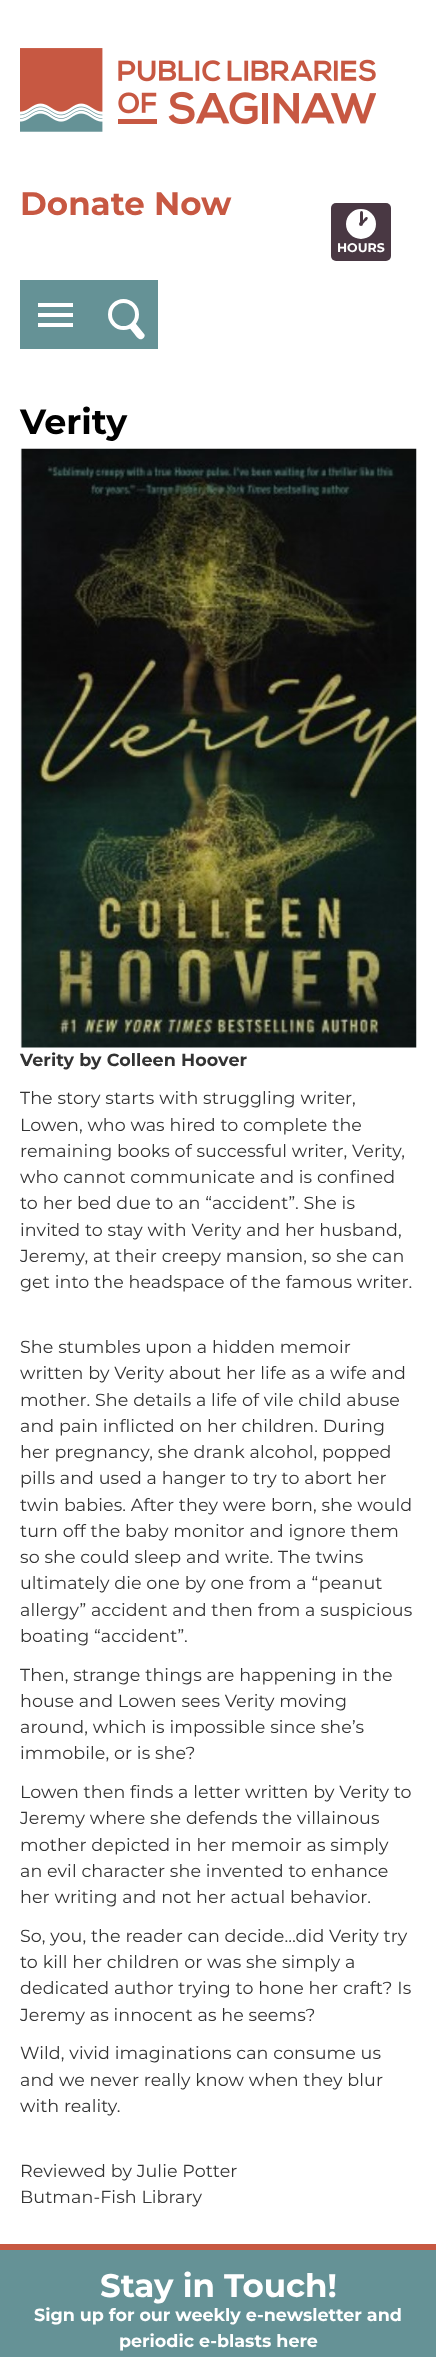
(async () => {
const canvas = document.querySelector("canvas")
canvas.width = 436
canvas.height = 2357
const c = canvas.getContext("2d")
c.miterLimit = 4
c.fontKerning = "normal"
function T(s,x,y){c.fillText(s,x,y)}
function R(x,y,w,h){c.fillRect(x,y,w,h)}
function Q(x,y,w,h,r){c.beginPath();c.roundRect(x,y,w,h,r);c.fill()}
async function I(src,x,y,w,h){const img=new Image();img.src=src;await img.decode();c.drawImage(img,x,y,w,h)}
let path
c.fillStyle="#fff"
R(0,0,436,2357)
c.fillStyle="#c75842"
R(0,2244,436,6)
await I("1.png",20,48,356,84)
c.font="bold 32.5px Montserrat"
T("Donate Now",20,215)
c.fillStyle="#493843"
Q(331,203,60,58,5)
c.beginPath()
c.arc(361,224,8.5,0,7)
c.strokeStyle="#fff"
c.lineWidth=13
c.stroke()
Q(360,211,3,13,1.5)
path = new Path2D("M367.5 217.5c1 1.5-1.5 3.5-2.5 4c-.5 1-2.5 3.5-4 2.5c-1-1.5 1.5-3.5 2.5-4c.5-1 2.5-4 4-2.5z")
c.fill(path)
c.font="bold 12.5px Montserrat"
c.fillStyle="#fff"
T("HOURS",337,252)
c.fillStyle="#659296"
R(20,280,138,69)
c.fillStyle="#fff"
R(38,303,35,4)
R(38,313,35,4)
R(38,323,35,4)
path = new Path2D("M126 323.5l8 10c2 2.5 6 8.5 9.5 4.5c1-1 1.5-2.5 1-3.5l-12.5-15.5c2.5 3.5-3 8-6 4.5z")
c.fill(path)
c.fillStyle="#659296"
c.beginPath()
c.arc(123.5,314.5,13.5,0,7)
c.fill()
c.lineWidth=4
c.stroke()
c.font="bold 35px Montserrat"
c.fillStyle="#000"
T("Verity",20,434)
await I("2.png",20,448,397,600)
c.letterSpacing="0.1px"
c.font="bold 17.5px Montserrat"
c.fillStyle="#333"
T("Verity by Colleen Hoover",20,1066)
c.font="17.5px Montserrat"
T("The story starts with struggling writer,",20,1104)
T("Lowen, who was hired to complete the",20,1131)
T("remaining books of successful writer, Verity,",20,1157)
T("who cannot communicate and is confined",20,1183)
T("to her bed due to an “accident”. She is",20,1209)
T("invited to stay with Verity and her husband,",20,1236)
T("Jeremy, at their creepy mansion, so she can",20,1262)
T("get into the headspace of the famous writer.",20,1288)
T("She stumbles upon a hidden memoir",20,1353)
T("written by Verity about her life as a wife and",20,1379)
T("mother. She details a life of vile child abuse",20,1406)
T("and pain inflicted on her children. During",20,1432)
T("her pregnancy, she drank alcohol, popped",20,1458)
T("pills and used a hanger to try to abort her",20,1484)
T("twin babies. After they were born, she would",20,1511)
T("turn off the baby monitor and ignore them",20,1537)
T("so she could sleep and write. The twins",20,1563)
T("ultimately die one by one from a “peanut",20,1589)
T("allergy” accident and then from a suspicious",20,1616)
T("boating “accident”.",20,1642)
T("Then, strange things are happening in the",20,1681)
T("house and Lowen sees Verity moving",20,1707)
T("around, which is impossible since she’s",20,1733)
T("immobile, or is she?",20,1759)
T("Lowen then finds a letter written by Verity to",20,1798)
T("Jeremy where she defends the villainous",20,1824)
T("mother depicted in her memoir as simply",20,1851)
T("an evil character she invented to enhance",20,1877)
T("her writing and not her actual behavior.",20,1903)
T("So, you, the reader can decide…did Verity try",20,1942)
T("to kill her children or was she simply a",20,1968)
T("dedicated author trying to hone her craft? Is",20,1994)
T("Jeremy as innocent as he seems?",20,2021)
T("Wild, vivid imaginations can consume us",20,2059)
T("and we never really know when they blur",20,2086)
T("with reality.",20,2112)
T("Reviewed by Julie Potter",20,2177)
T("Butman-Fish Library",20,2203)
c.fillStyle="#659296"
R(0,2250,436,107)
c.letterSpacing="0px"
c.font="bold 32.5px Montserrat"
c.fillStyle="#fff"
T("Stay in Touch!",100,2297)
c.font="bold 17.5px Montserrat"
T("Sign up for our weekly e-newsletter and",34,2321)
T("periodic e-blasts here",119,2347)
})()
